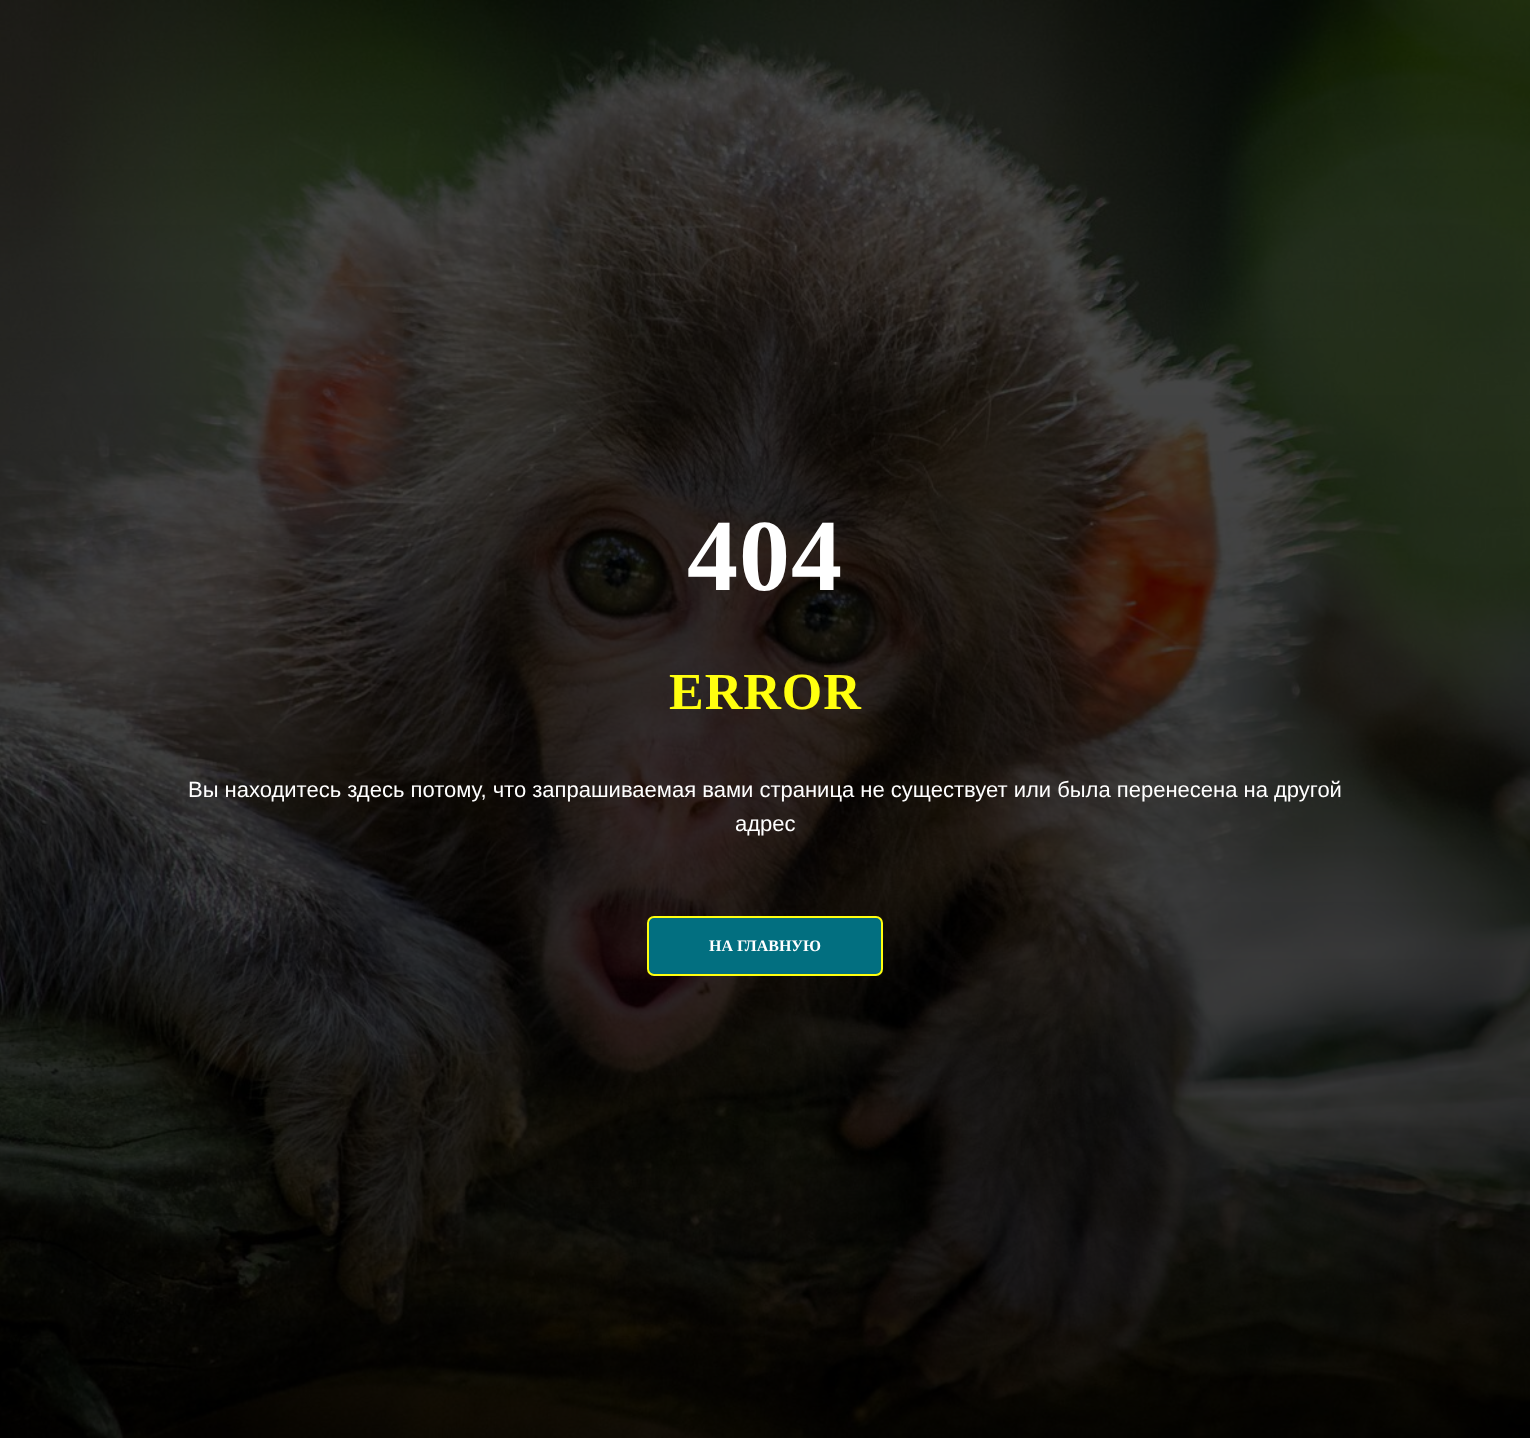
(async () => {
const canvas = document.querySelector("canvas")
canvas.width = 1530
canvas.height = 1438
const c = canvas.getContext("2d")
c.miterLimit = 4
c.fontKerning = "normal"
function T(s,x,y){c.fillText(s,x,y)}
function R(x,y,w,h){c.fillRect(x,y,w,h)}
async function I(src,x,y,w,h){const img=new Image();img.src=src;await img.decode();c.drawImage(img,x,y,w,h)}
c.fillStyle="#fff"
R(0,0,1530,1438)
await I("1.png",0,0,1530,1438)
c.letterSpacing="1px"
c.font="bold 102px Liberation Serif"
T("404",687,590)
c.font="bold 52px Liberation Serif"
c.fillStyle="#ffff0f"
T("ERROR",669,709)
c.letterSpacing="0px"
c.font="22px Liberation Sans"
c.fillStyle="#fff"
T("Вы находитесь здесь потому, что запрашиваемая вами страница не существует или была перенесена на другой",188,797)
T("адрес",735,831)
c.fillStyle="#026f80"
c.beginPath()
c.roundRect(648,917,234,58,6)
c.fill()
c.strokeStyle="#ffff0f"
c.lineWidth=2
c.stroke()
c.font="bold 16px Liberation Serif"
c.fillStyle="#fff"
T("НА ГЛАВНУЮ",709,951)
})()
